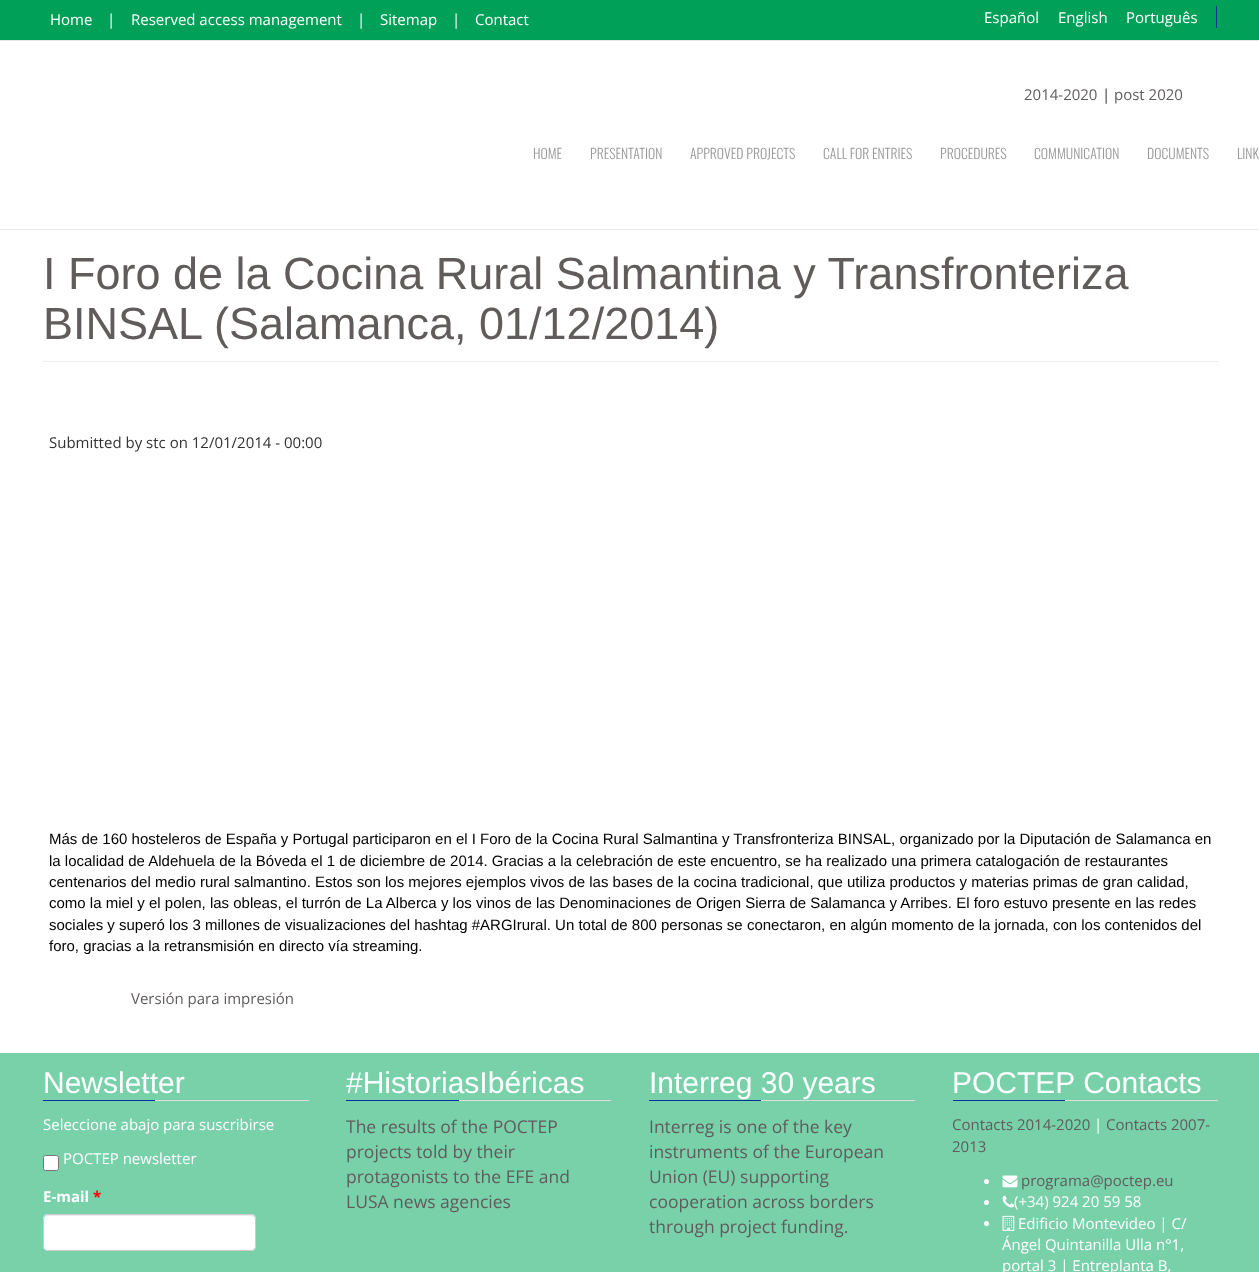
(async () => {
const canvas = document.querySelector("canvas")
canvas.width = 1259
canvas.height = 1272
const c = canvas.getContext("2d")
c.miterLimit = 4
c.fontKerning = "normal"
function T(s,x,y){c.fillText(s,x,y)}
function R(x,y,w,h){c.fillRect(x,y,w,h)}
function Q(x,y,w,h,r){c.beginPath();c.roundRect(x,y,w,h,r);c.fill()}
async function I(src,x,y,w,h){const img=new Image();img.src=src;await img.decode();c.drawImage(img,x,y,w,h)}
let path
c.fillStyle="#fff"
R(0,0,1259,1272)
c.fillStyle="#00a059"
R(0,0,1259,40)
c.font="15px Open Sans"
c.fillStyle="#fff"
T("Home",50,25)
T("|",107,25)
T("Reserved access management",131,25)
T("|",357,25)
T("Sitemap",380,25)
T("|",452,25)
T("Contact",475,25)
c.fillStyle="#039"
R(1216,6,1,22)
c.fillStyle="#fff"
T("Español",984,23)
T("English",1058,23)
T("Português",1126,23)
c.fillStyle="#eaeaea"
R(0,40,1259,1)
R(0,229,1259,1)
c.fillStyle="#605c5b"
T("2014-2020",1024,100)
c.fillStyle="#333"
T("|",1102,100)
c.fillStyle="#605c5b"
T("post 2020",1114,100)
c.font="300 13.75px Oswald"
c.fillStyle="#999"
T("HOME",533,159)
T("PRESENTATION",590,159)
T("APPROVED PROJECTS",690,159)
T("CALL FOR ENTRIES",823,159)
T("PROCEDURES",940,159)
T("COMMUNICATION",1034,159)
T("DOCUMENTS",1147,159)
T("LINK",1237,159)
c.fillStyle="#eee"
R(43,361,1175,1)
c.font="45px Liberation Sans"
c.fillStyle="#605c5b"
T("I Foro de la Cocina Rural Salmantina y Transfronteriza",43,289)
T("BINSAL (Salamanca, 01/12/2014)",43,339)
c.font="15px Open Sans"
c.fillStyle="#333"
T("Submitted by stc on 12/01/2014 - 00:00",49,448)
c.font="15px Liberation Sans"
c.fillStyle="#000"
T("Más de 160 hosteleros de España y Portugal participaron en el I Foro de la Cocina Rural Salmantina y Transfronteriza BINSAL, organizado por la Diputación de Salamanca en",49,844)
T("la localidad de Aldehuela de la Bóveda el 1 de diciembre de 2014. Gracias a la celebración de este encuentro, se ha realizado una primera catalogación de restaurantes",49,866)
T("centenarios del medio rural salmantino. Estos son los mejores ejemplos vivos de las bases de la cocina tradicional, que utiliza productos y materias primas de gran calidad,",49,887)
T("como la miel y el polen, las obleas, el turrón de La Alberca y los vinos de las Denominaciones de Origen Sierra de Salamanca y Arribes. El foro estuvo presente en las redes",49,908)
T("sociales y superó los 3 millones de visualizaciones del hashtag #ARGIrural. Un total de 800 personas se conectaron, en algún momento de la jornada, con los contenidos del",49,930)
T("foro, gracias a la retransmisión en directo vía streaming.",49,951)
c.font="15px Open Sans"
c.fillStyle="#605c5b"
T("Versión para impresión",131,1004)
c.fillStyle="#79d1aa"
R(0,1053,1259,219)
c.fillStyle="#ddd"
R(155,1100,154,1)
c.font="30px Liberation Sans"
c.fillStyle="#fff"
T("Newsletter",43,1093)
c.fillStyle="#039"
R(43,1100,112,1)
c.font="15px Open Sans"
c.fillStyle="#fff"
T("Seleccione abajo para suscribirse",43,1130)
c.beginPath()
c.roundRect(43.5,1155.5,15,15,2)
c.fill()
c.strokeStyle="#767676"
c.stroke()
T("POCTEP newsletter",63,1164)
c.font="bold 15px Open Sans"
T("E-mail",43,1202)
c.fillStyle="#f00"
T("*",93,1202)
c.fillStyle="#fff"
Q(43,1214,213,37,5)
c.fillStyle="#ececec"
path = new Path2D("M48 1216h203c2 0 4 2 4 4v-1c0-2-2-4-4-4h-203c-2 0-4 2-4 4v1c0-2 1-4 4-4z")
c.fill(path)
c.beginPath()
c.roundRect(43.5,1214.5,212,36,4.5)
c.strokeStyle="#ccc"
c.stroke()
c.fillStyle="#ddd"
R(459,1100,152,1)
c.font="30px Liberation Sans"
c.fillStyle="#fff"
T("#HistoriasIbéricas",346,1093)
c.fillStyle="#039"
R(346,1100,113,1)
c.font="17.5px Open Sans"
c.fillStyle="#605c5b"
T("The results of the POCTEP",346,1133)
T("projects told by their",346,1158)
T("protagonists to the EFE and",346,1183)
T("LUSA news agencies",346,1208)
c.fillStyle="#ddd"
R(761,1100,154,1)
c.font="30px Liberation Sans"
c.fillStyle="#fff"
T("Interreg 30 years",649,1093)
c.fillStyle="#039"
R(649,1100,112,1)
c.font="17.5px Open Sans"
c.fillStyle="#605c5b"
T("Interreg is one of the key",649,1133)
T("instruments of the European",649,1158)
T("Union (EU) supporting",649,1183)
T("cooperation across borders",649,1208)
T("through project funding.",649,1233)
c.fillStyle="#ddd"
R(1065,1100,153,1)
c.font="30px Liberation Sans"
c.fillStyle="#fff"
T("POCTEP Contacts",952,1093)
c.fillStyle="#039"
R(953,1100,112,1)
c.font="15px Open Sans"
c.fillStyle="#605c5b"
T("Contacts 2014-2020",952,1130)
c.fillStyle="#fff"
T("|",1094,1130)
c.fillStyle="#605c5b"
T("Contacts 2007-",1106,1130)
T("2013",952,1152)
c.fillStyle="#fff"
c.beginPath()
c.arc(986.5,1181.5,2.5,0,7)
c.fill()
await I("1.png",1002,1175,16,13)
c.fillStyle="#605c5b"
T("programa@poctep.eu",1021,1186)
c.fillStyle="#fff"
c.beginPath()
c.arc(986.5,1202.5,2.5,0,7)
c.fill()
await I("2.png",1002,1195,13,13)
T("(+34) 924 20 59 58",1014,1207)
c.beginPath()
c.arc(986.5,1223.5,2.5,0,7)
c.fill()
await I("3.png",1002,1215,13,16)
T("Edificio Montevideo | C/",1018,1229)
T("Ángel Quintanilla Ulla n°1,",1002,1250)
T("portal 3 | Entreplanta B,",1002,1271)
})()
